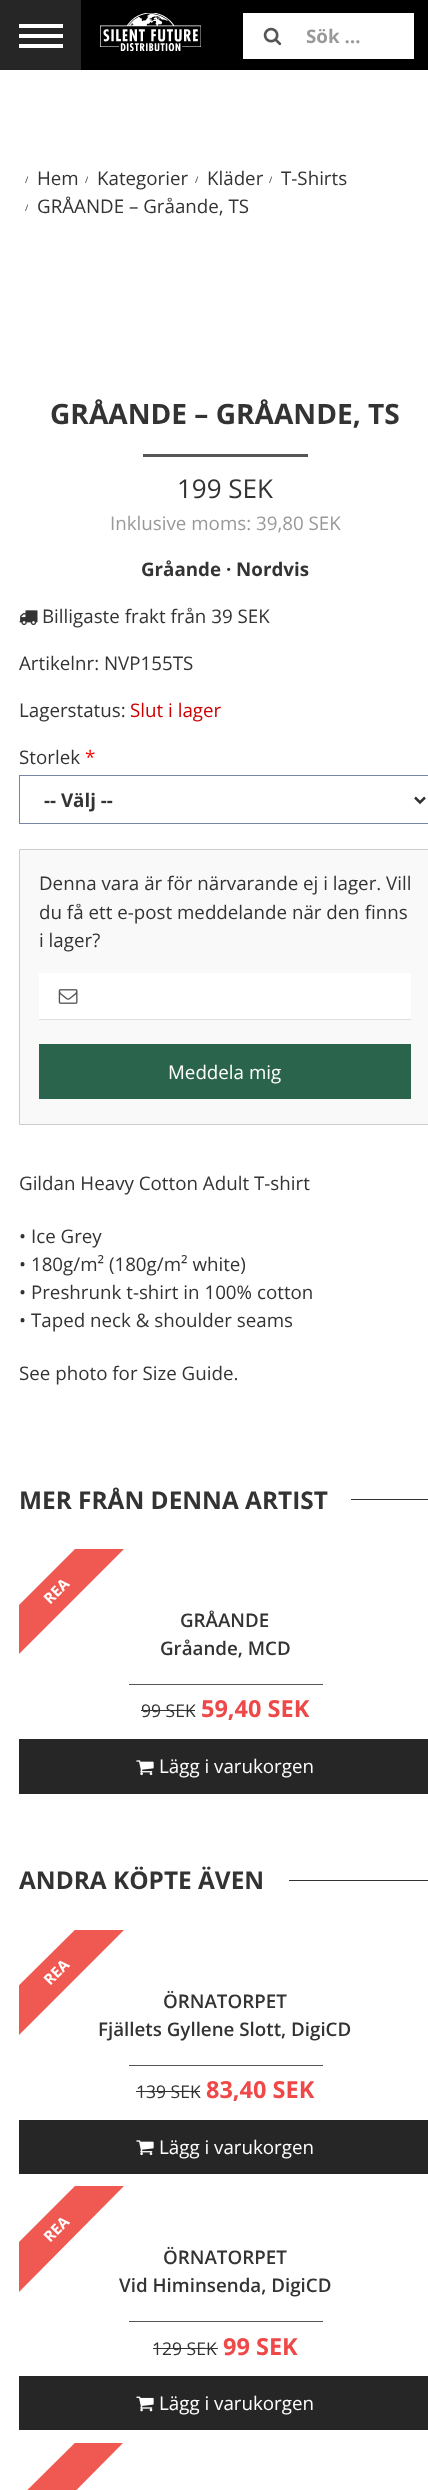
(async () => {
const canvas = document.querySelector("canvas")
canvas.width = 428
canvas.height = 2490
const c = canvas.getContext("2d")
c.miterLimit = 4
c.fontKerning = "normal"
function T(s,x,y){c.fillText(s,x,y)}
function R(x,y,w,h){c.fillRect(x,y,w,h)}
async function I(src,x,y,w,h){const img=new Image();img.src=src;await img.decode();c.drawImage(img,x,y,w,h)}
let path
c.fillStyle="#fff"
R(0,0,428,2490)
c.fillStyle="#000"
R(81,0,347,70)
c.fillStyle="#262626"
R(0,0,81,70)
c.fillStyle="#fff"
R(19,24,44,4)
R(19,34,44,4)
R(19,44,44,4)
await I("1.png",100,13,101,38)
R(243,13,171,46)
await I("2.png",263,27,19,19)
c.font="bold 18.75px Open Sans"
c.fillStyle="#999"
T("Sök …",306,43)
c.font="9px Open Sans"
c.fillStyle="#333"
T("/",25,183)
c.font="18.75px Open Sans"
T("Hem",37,185)
c.font="9px Open Sans"
T("/",85,183)
c.font="18.75px Open Sans"
T("Kategorier",97,185)
c.font="9px Open Sans"
T("/",195,183)
c.font="18.75px Open Sans"
T("Kläder",207,185)
c.font="9px Open Sans"
T("/",269,183)
c.font="18.75px Open Sans"
T("T-Shirts",281,185)
c.font="9px Open Sans"
T("/",25,211)
c.font="18.75px Open Sans"
T("GRÅANDE – Gråande, TS",37,213)
c.font="bold 28.1px Open Sans"
T("GRÅANDE – GRÅANDE, TS",50,424)
c.fillStyle="#555"
R(143,454,165,3)
c.font="26px Open Sans"
c.fillStyle="#333"
T("199 SEK",177,498)
c.font="18.75px Open Sans"
c.fillStyle="#999"
T("Inklusive moms: 39,80 SEK",110,530)
c.font="bold 18.75px Open Sans"
c.fillStyle="#333"
T("Gråande · Nordvis",141,576)
await I("3.png",19,610,19,16)
c.font="18.75px Open Sans"
T("Billigaste frakt från 39 SEK",42,623)
T("Artikelnr: NVP155TS",19,670)
T("Lagerstatus:",19,717)
c.fillStyle="#c00"
T("Slut i lager",130,717)
c.fillStyle="#333"
T("Storlek",19,764)
c.fillStyle="#f00"
T("*",85,764)
c.strokeStyle="#7886a5"
c.strokeRect(19.5,775.5,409,48)
path = new Path2D("M415 797.5l5 5l5-5")
c.strokeStyle="#333"
c.lineWidth=2.5
c.stroke(path)
c.font="bold 18.75px Open Sans"
c.fillStyle="#333"
T("-- Välj --",44,807)
c.fillStyle="#f9f9f9"
c.beginPath()
c.rect(19.5,849.5,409,275)
c.fill()
c.strokeStyle="#ccc"
c.lineWidth=1
c.stroke()
c.font="18.75px Open Sans"
c.fillStyle="#333"
T("Denna vara är för närvarande ej i lager. Vill",39,890)
T("du få ett e-post meddelande när den finns",39,919)
T("i lager?",39,947)
c.fillStyle="#0000001a"
c.filter="blur(0.5px)"
c.beginPath()
c.rect(39,974,372,46)
c.fill()
c.filter="none"
c.fillStyle="#fff"
R(39,973,372,46)
await I("4.png",58,989,20,15)
c.fillStyle="#2a644c"
R(39,1044,372,55)
c.fillStyle="#fff"
T("Meddela mig",168,1079)
c.fillStyle="#333"
T("Gildan Heavy Cotton Adult T-shirt",19,1190)
T("• Ice Grey",19,1243)
T("• 180g/m² (180g/m² white)",19,1271)
T("• Preshrunk t-shirt in 100% cotton",19,1299)
T("• Taped neck & shoulder seams",19,1327)
T("See photo for Size Guide.",19,1380)
c.font="bold 24.4px Open Sans"
T("MER FRÅN DENNA ARTIST",19,1509)
R(351,1499,77,1)
c.save()
c.beginPath()
c.rect(19,1549,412,245)
c.clip()
c.fillStyle="#f05951"
path = new Path2D("M-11 1635l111-111l24 25l-110 110z")
c.fill(path)
c.restore()
c.font="bold 15px Open Sans"
c.fillStyle="#fff"
c.save()
c.translate(50,1605)
c.rotate(-45 * Math.PI / 180)
c.fillText("REA",0,0)
c.restore()
c.font="600 18.75px Open Sans"
c.fillStyle="#333"
T("GRÅANDE",180,1627)
T("Gråande, MCD",160,1655)
c.fillStyle="#555"
R(129,1684,194,1)
c.font="17.5px Open Sans"
c.fillStyle="#333"
T("99 SEK",141,1717)
R(141,1710,54,1)
c.font="bold 23.5px Open Sans"
c.fillStyle="#ef4848"
T("59,40 SEK",201,1717)
c.fillStyle="#262626"
R(19,1739,409,55)
await I("5.png",136,1760,18,16)
c.font="18.75px Open Sans"
c.fillStyle="#fff"
T("Lägg i varukorgen",159,1773)
c.font="bold 24.4px Open Sans"
c.fillStyle="#333"
T("ANDRA KÖPTE ÄVEN",19,1889)
R(289,1880,139,1)
c.font="600 18.75px Open Sans"
T("Fjällets Gyllene Slott, DigiCD",98,2036)
c.save()
c.beginPath()
c.rect(19,1930,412,244)
c.clip()
c.fillStyle="#f05951"
path = new Path2D("M-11 2015l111-110l24 25l-110 110z")
c.fill(path)
c.restore()
c.font="bold 15px Open Sans"
c.fillStyle="#fff"
c.save()
c.translate(50,1986)
c.rotate(-45 * Math.PI / 180)
c.fillText("REA",0,0)
c.restore()
c.font="600 18.75px Open Sans"
c.fillStyle="#333"
T("ÖRNATORPET",163,2008)
c.fillStyle="#555"
R(129,2065,194,1)
c.font="17.5px Open Sans"
c.fillStyle="#333"
T("139 SEK",136,2098)
R(136,2091,64,1)
c.font="bold 23.5px Open Sans"
c.fillStyle="#ef4848"
T("83,40 SEK",206,2098)
c.fillStyle="#262626"
R(19,2120,409,54)
await I("5.png",136,2140,18,16)
c.font="18.75px Open Sans"
c.fillStyle="#fff"
T("Lägg i varukorgen",159,2154)
c.font="600 18.75px Open Sans"
c.fillStyle="#333"
T("Vid Himinsenda, DigiCD",119,2292)
c.save()
c.beginPath()
c.rect(19,2186,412,244)
c.clip()
c.fillStyle="#f05951"
path = new Path2D("M-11 2272l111-111l24 25l-110 111z")
c.fill(path)
c.restore()
c.font="bold 15px Open Sans"
c.fillStyle="#fff"
c.save()
c.translate(50,2243)
c.rotate(-45 * Math.PI / 180)
c.fillText("REA",0,0)
c.restore()
c.font="600 18.75px Open Sans"
c.fillStyle="#333"
T("ÖRNATORPET",163,2264)
c.fillStyle="#555"
R(129,2321,194,1)
c.font="17.5px Open Sans"
c.fillStyle="#333"
T("129 SEK",152,2355)
R(153,2348,65,1)
c.font="bold 23.5px Open Sans"
c.fillStyle="#ef4848"
T("99 SEK",223,2355)
c.fillStyle="#262626"
R(19,2376,409,54)
await I("6.png",136,2396,18,16)
c.font="18.75px Open Sans"
c.fillStyle="#fff"
T("Lägg i varukorgen",159,2410)
c.save()
c.beginPath()
c.rect(19,2443,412,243)
c.clip()
c.fillStyle="#f05951"
path = new Path2D("M-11 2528l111-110l24 24l-110 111z")
c.fill(path)
c.restore()
})()
